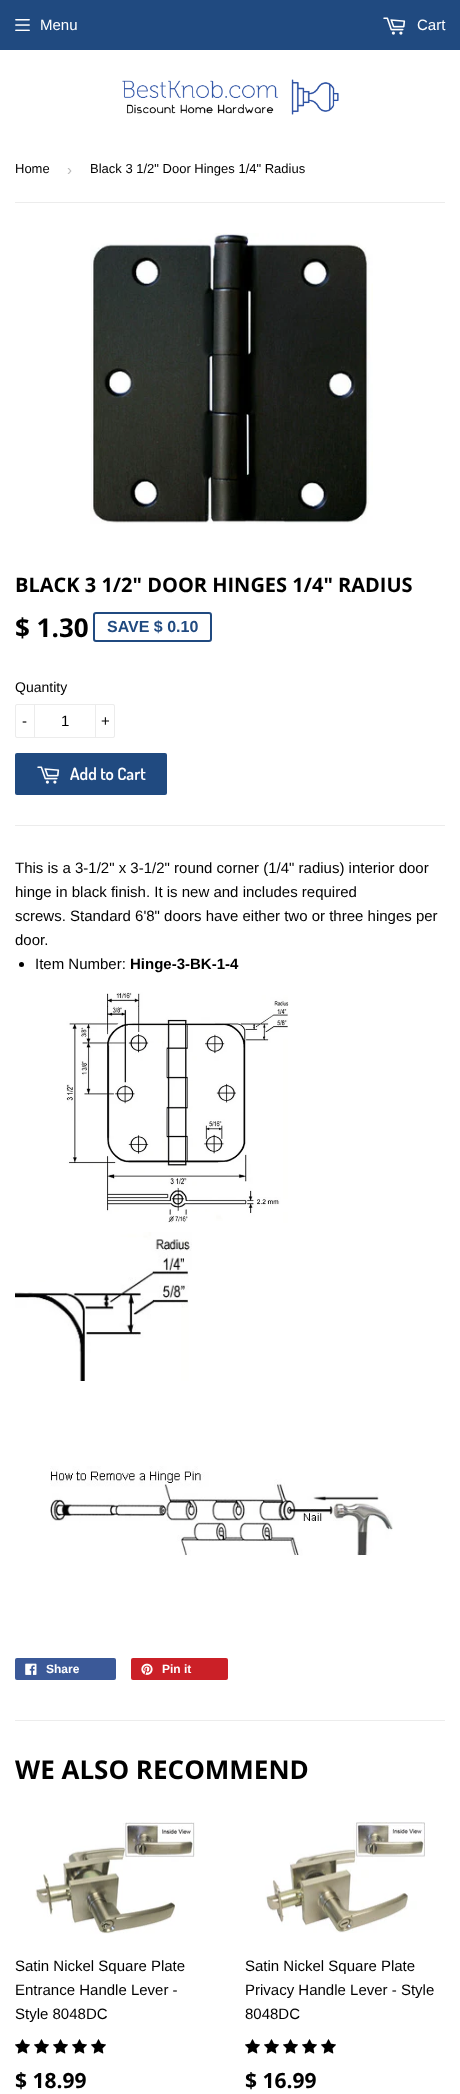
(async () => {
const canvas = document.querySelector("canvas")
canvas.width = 460
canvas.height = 2094
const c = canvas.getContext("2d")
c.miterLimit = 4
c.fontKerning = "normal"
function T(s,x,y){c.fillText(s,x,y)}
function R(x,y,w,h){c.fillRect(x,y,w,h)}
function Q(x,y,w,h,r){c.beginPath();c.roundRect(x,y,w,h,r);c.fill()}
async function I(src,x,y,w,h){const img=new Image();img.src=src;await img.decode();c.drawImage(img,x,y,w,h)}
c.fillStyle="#fff"
R(0,0,460,2094)
c.fillStyle="#204a80"
R(0,0,460,50)
await I("1.png",15,19,15,12)
c.font="15px Liberation Sans"
c.fillStyle="#fff"
T("Menu",40,30)
await I("2.png",383,17,23,18)
T("Cart",417,30)
await I("3.png",122,79,217,36)
c.fillStyle="#ececec"
R(15,202,430,1)
c.font="13px Liberation Sans"
c.fillStyle="#000"
T("Home",15,173)
c.font="15px Liberation Sans"
c.fillStyle="#bbb"
T("›",67,175)
c.font="13px Liberation Sans"
c.fillStyle="#000"
T("Black 3 1/2\" Door Hinges 1/4\" Radius",90,173)
await I("4.png",90,233,283,291)
c.font="bold 20px Open Sans"
T("BLACK 3 1/2\" DOOR HINGES 1/4\" RADIUS",15,592)
c.font="bold 26px Open Sans"
T("$ 1.30",15,637)
c.beginPath()
c.roundRect(94,613,117,28,2)
c.strokeStyle="#204a80"
c.lineWidth=2
c.stroke()
c.font="bold 16px Liberation Sans"
c.fillStyle="#204a80"
T("SAVE $ 0.10",107,632)
c.font="14px Liberation Sans"
c.fillStyle="#000"
T("Quantity",15,692)
c.beginPath()
c.roundRect(15.5,704.5,99,33,1.5)
c.strokeStyle="#ececec"
c.lineWidth=1
c.stroke()
c.fillStyle="#ececec"
R(34,704,1,34)
c.font="15px Liberation Sans"
c.fillStyle="#000"
T("-",22,726)
T("1",61,726)
c.fillStyle="#ececec"
R(95,704,1,34)
c.fillStyle="#000"
T("+",101,726)
c.fillStyle="#204a80"
Q(15,753,152,42,2)
await I("2.png",37,766,23,18)
c.font="600 17px Dosis"
c.fillStyle="#fff"
T("Add to Cart",70,780)
c.fillStyle="#ececec"
R(15,825,430,1)
c.font="15px Liberation Sans"
c.fillStyle="#000"
T("This is a 3-1/2\" x 3-1/2\" round corner (1/4\" radius) interior door",15,873)
T("hinge in black finish. It is new and includes required",15,897)
T("screws. Standard 6'8\" doors have either two or three hinges per",15,921)
T("door.",15,945)
c.beginPath()
c.arc(21.5,964.5,2.5,0,7)
c.fill()
T("Item Number:",35,969)
c.font="bold 15px Liberation Sans"
T("Hinge-3-BK-1-4",130,969)
await I("5.png",66,992,223,231)
await I("6.png",15,1232,177,149)
await I("7.png",50,1466,343,90)
c.fillStyle="#3b5998"
Q(15,1658,101,22,2)
await I("8.png",25,1663,12,12)
c.font="bold 12px Liberation Sans"
c.fillStyle="#fff"
T("Share",46,1673)
c.fillStyle="#cb2027"
Q(131,1658,97,22,2)
await I("9.png",141,1663,12,12)
c.fillStyle="#fff"
T("Pin it",162,1673)
c.fillStyle="#ececec"
R(15,1720,430,1)
c.font="bold 26px Open Sans"
c.fillStyle="#000"
T("WE ALSO RECOMMEND",15,1779)
await I("10.png",35,1822,160,112)
c.font="15px Liberation Sans"
T("Satin Nickel Square Plate",15,1971)
T("Entrance Handle Lever -",15,1995)
T("Style 8048DC",15,2019)
await I("11.png",15,2039,15,15)
await I("11.png",34,2039,15,15)
await I("11.png",53,2039,15,15)
await I("11.png",72,2039,15,15)
await I("11.png",91,2039,15,15)
c.font="bold 21px Open Sans"
T("$ 18.99",15,2088)
await I("12.png",265,1822,160,111)
c.font="15px Liberation Sans"
T("Satin Nickel Square Plate",245,1971)
T("Privacy Handle Lever - Style",245,1995)
T("8048DC",245,2019)
await I("11.png",245,2039,15,15)
await I("11.png",264,2039,15,15)
await I("11.png",283,2039,15,15)
await I("11.png",302,2039,15,15)
await I("11.png",321,2039,15,15)
c.font="bold 21px Open Sans"
T("$ 16.99",245,2088)
})()
